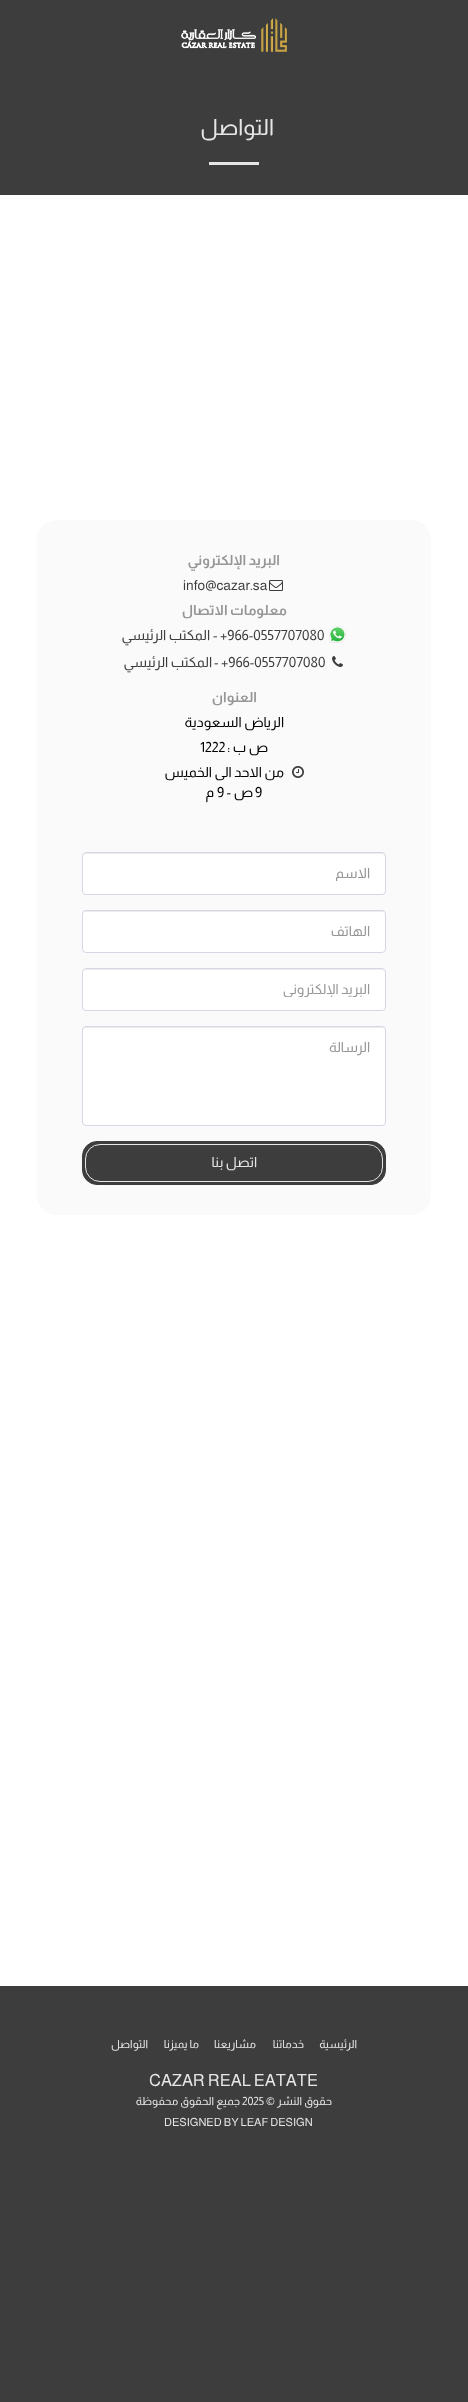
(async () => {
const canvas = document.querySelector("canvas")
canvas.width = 468
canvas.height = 2402
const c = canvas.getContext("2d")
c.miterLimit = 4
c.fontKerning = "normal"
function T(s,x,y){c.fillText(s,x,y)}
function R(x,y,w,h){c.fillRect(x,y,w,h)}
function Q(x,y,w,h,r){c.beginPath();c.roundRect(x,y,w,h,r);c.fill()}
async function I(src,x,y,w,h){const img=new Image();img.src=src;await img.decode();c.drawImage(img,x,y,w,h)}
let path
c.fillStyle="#3d3d3d"
R(0,0,468,2402)
await I("1.png",181,18,106,34)
c.fillStyle="#fff"
R(0,195,468,1791)
c.letterSpacing="0.5px"
c.direction="rtl"
c.font="22.5px Almarai"
c.fillStyle="#e6e6e6"
T("التواصل",274,135)
R(209,162,50,3)
c.fillStyle="#fafafa"
Q(37,520,394,695,20)
c.letterSpacing="0px"
c.font="bold 14px Almarai"
c.fillStyle="#969696"
T("البريد الإلكتروني",280,565)
await I("2.png",269,580,14,11)
c.direction="ltr"
c.font="14px Almarai"
c.fillStyle="#3d3d3d"
T("info@cazar.sa",183,590)
c.direction="rtl"
c.font="bold 14px Almarai"
c.fillStyle="#969696"
T("معلومات الاتصال",287,615)
await I("3.png",329,626,17,17)
c.direction="ltr"
c.font="14px Almarai"
c.fillStyle="#3d3d3d"
T("+966-0557707080",220,640)
T("-",213,640)
c.direction="rtl"
T("المكتب الرئيسي",210,640)
await I("4.png",332,656,11,11)
c.direction="ltr"
T("+966-0557707080",221,667)
T("-",214,667)
c.direction="rtl"
T("المكتب الرئيسي",212,667)
c.font="bold 14px Almarai"
c.fillStyle="#969696"
T("العنوان",257,702)
c.font="14px Almarai"
c.fillStyle="#000"
T("الرياض السعودية",284,727)
T("ص ب :",268,752)
c.direction="ltr"
T("1222",200,752)
await I("5.png",292,766,12,12)
c.direction="rtl"
T("من الاحد الى الخميس",284,777)
c.direction="ltr"
T("9",255,797)
c.direction="rtl"
T("ص -",253,797)
c.direction="ltr"
T("9",217,797)
c.direction="rtl"
T("م",214,797)
c.fillStyle="#fff"
Q(82,852,304,43,4)
c.fillStyle="#ececec"
path = new Path2D("M86 854h296c2 0 3 1 3 3l-1-3l-1-1h-297c-2 0-3 2-3 4c0-2 1-3 3-3z")
c.fill(path)
c.beginPath()
c.roundRect(82.5,852.5,303,42,3.5)
c.strokeStyle="#d4d7e5"
c.stroke()
c.save()
c.beginPath()
c.rect(98,865,272,16)
c.clip()
c.fillStyle="#969696"
T("الاسم",370,878)
c.restore()
c.fillStyle="#fff"
Q(82,910,304,43,4)
c.fillStyle="#ececec"
path = new Path2D("M86 912h296c2 0 3 1 3 3l-1-3l-1-1h-297c-2 0-3 2-3 4c0-2 1-3 3-3z")
c.fill(path)
c.beginPath()
c.roundRect(82.5,910.5,303,42,3.5)
c.stroke()
c.fillStyle="#969696"
T("الهاتف",370,936)
c.fillStyle="#fff"
Q(82,968,304,43,4)
c.fillStyle="#ececec"
path = new Path2D("M86 970h296c2 0 3 1 3 3l-1-3l-1-1h-297c-2 0-3 2-3 4c0-2 1-3 3-3z")
c.fill(path)
c.beginPath()
c.roundRect(82.5,968.5,303,42,3.5)
c.stroke()
c.save()
c.beginPath()
c.rect(98,981,272,16)
c.clip()
c.fillStyle="#969696"
T("البريد الإلكتروني",370,994)
c.restore()
c.fillStyle="#fff"
Q(82,1026,304,100,4)
c.fillStyle="#ececec"
path = new Path2D("M86 1028h296c2 0 3 1 3 3l-1-3l-1-1h-297c-2 0-3 2-3 4c0-2 1-3 3-3z")
c.fill(path)
c.beginPath()
c.roundRect(82.5,1026.5,303,99,3.5)
c.stroke()
c.fillStyle="#969696"
T("الرسالة",370,1052)
c.fillStyle="#3d3d3d"
c.beginPath()
c.roundRect(82.5,1141.5,303,43,14.5)
c.fill()
c.strokeStyle="#3d3d3d"
c.stroke()
c.beginPath()
c.roundRect(85.5,1144.5,297,37,14.5)
c.strokeStyle="#e6e6e6"
c.stroke()
c.fillStyle="#e6e6e6"
T("اتصل بنا",257,1167)
c.font="11.25px Almarai"
T("الرئيسية",357,2048)
T("خدماتنا",304,2048)
T("مشاريعنا",256,2048)
T("ما يميزنا",199,2048)
T("التواصل",148,2048)
c.direction="ltr"
c.font="16.75px Almarai"
T("CAZAR REAL EATATE",149,2086)
c.direction="rtl"
c.font="11.25px Almarai"
T("حقوق النشر ©",332,2105)
c.direction="ltr"
T("2025",242,2105)
c.direction="rtl"
T("جميع الحقوق محفوظة",240,2105)
c.direction="ltr"
T("DESIGNED BY LEAF DESIGN",164,2126)
})()
